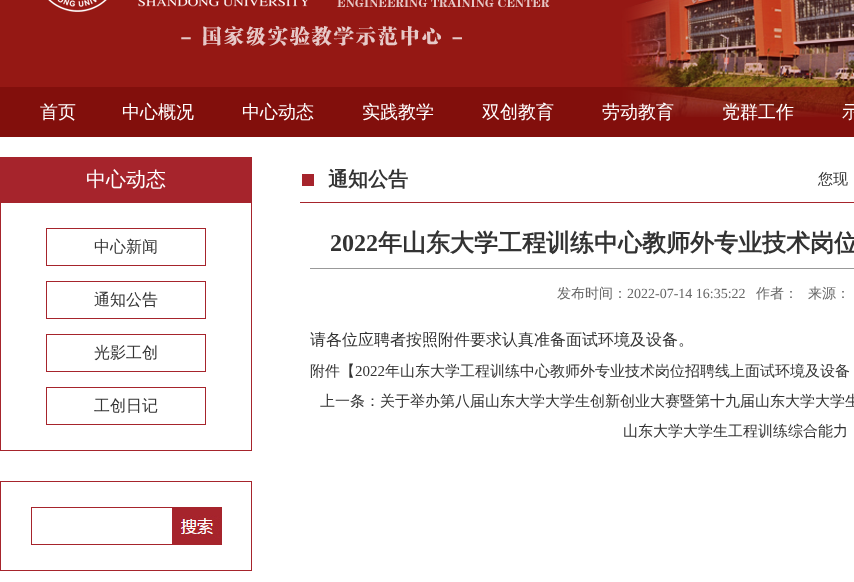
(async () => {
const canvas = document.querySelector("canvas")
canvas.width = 854
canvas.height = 582
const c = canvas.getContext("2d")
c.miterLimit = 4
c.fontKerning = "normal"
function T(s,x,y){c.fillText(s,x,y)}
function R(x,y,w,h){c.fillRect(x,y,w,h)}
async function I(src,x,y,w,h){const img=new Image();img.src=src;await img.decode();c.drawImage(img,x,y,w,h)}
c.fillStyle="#fff"
R(0,0,854,582)
c.fillStyle="#951814"
R(0,0,854,137)
await I("1.png",48,0,806,117)
c.fillStyle="#7b0c0aba"
R(0,87,854,50)
c.font="500 18px WenQuanYi Zen Hei"
c.fillStyle="#fff"
T("首页",40,118)
T("中心概况",122,118)
T("中心动态",242,118)
T("实践教学",362,118)
T("双创教育",482,118)
T("劳动教育",602,118)
T("党群工作",722,118)
T("示",842,118)
c.fillStyle="#a6242c"
R(0,157,252,45)
c.font="500 20px WenQuanYi Zen Hei"
c.fillStyle="#fff"
T("中心动态",86,186)
c.strokeStyle="#a6242c"
c.strokeRect(.5,202.5,251,248)
c.strokeRect(46.5,228.5,159,37)
c.font="500 16px WenQuanYi Zen Hei"
c.fillStyle="#333"
T("中心新闻",94,252)
c.strokeRect(46.5,281.5,159,37)
T("通知公告",94,305)
c.strokeRect(46.5,334.5,159,37)
T("光影工创",94,358)
c.strokeRect(46.5,387.5,159,37)
T("工创日记",94,411)
c.strokeRect(.5,481.5,251,89)
c.strokeRect(31.5,507.5,141,37)
c.fillStyle="#a6242c"
R(173,507,4,38)
await I("2.png",177,507,45,38)
R(300,202,554,1)
R(302,174,12,12)
c.font="bold 20px WenQuanYi Zen Hei"
c.fillStyle="#333"
T("通知公告",328,186)
c.font="500 15px WenQuanYi Zen Hei"
T("您现",818,184)
c.fillStyle="#999"
R(310,268,544,1)
c.font="bold 24px Liberation Serif"
c.fillStyle="#333"
T("2022",330,251)
c.font="bold 24px WenQuanYi Zen Hei"
T("年山东大学工程训练中心教师外专业技术岗位",378,251)
c.font="500 14px WenQuanYi Zen Hei"
c.fillStyle="#666"
T("发布时间：",557,298)
c.font="14px Liberation Serif"
T("2022-07-14 16:35:22",627,298)
c.font="500 14px WenQuanYi Zen Hei"
T("作者：",756,298)
T("来源：",808,298)
c.font="500 16px WenQuanYi Zen Hei"
c.fillStyle="#333"
T("请各位应聘者按照附件要求认真准备面试环境及设备。",310,345)
c.font="500 15px WenQuanYi Zen Hei"
T("附件【",310,376)
c.font="15px Liberation Serif"
T("2022",355,376)
c.font="500 15px WenQuanYi Zen Hei"
T("年山东大学工程训练中心教师外专业技术岗位招聘线上面试环境及设备",385,376)
T("上一条：关于举办第八届山东大学大学生创新创业大赛暨第十九届山东大学大学生",320,406)
T("山东大学大学生工程训练综合能力",623,436)
})()
